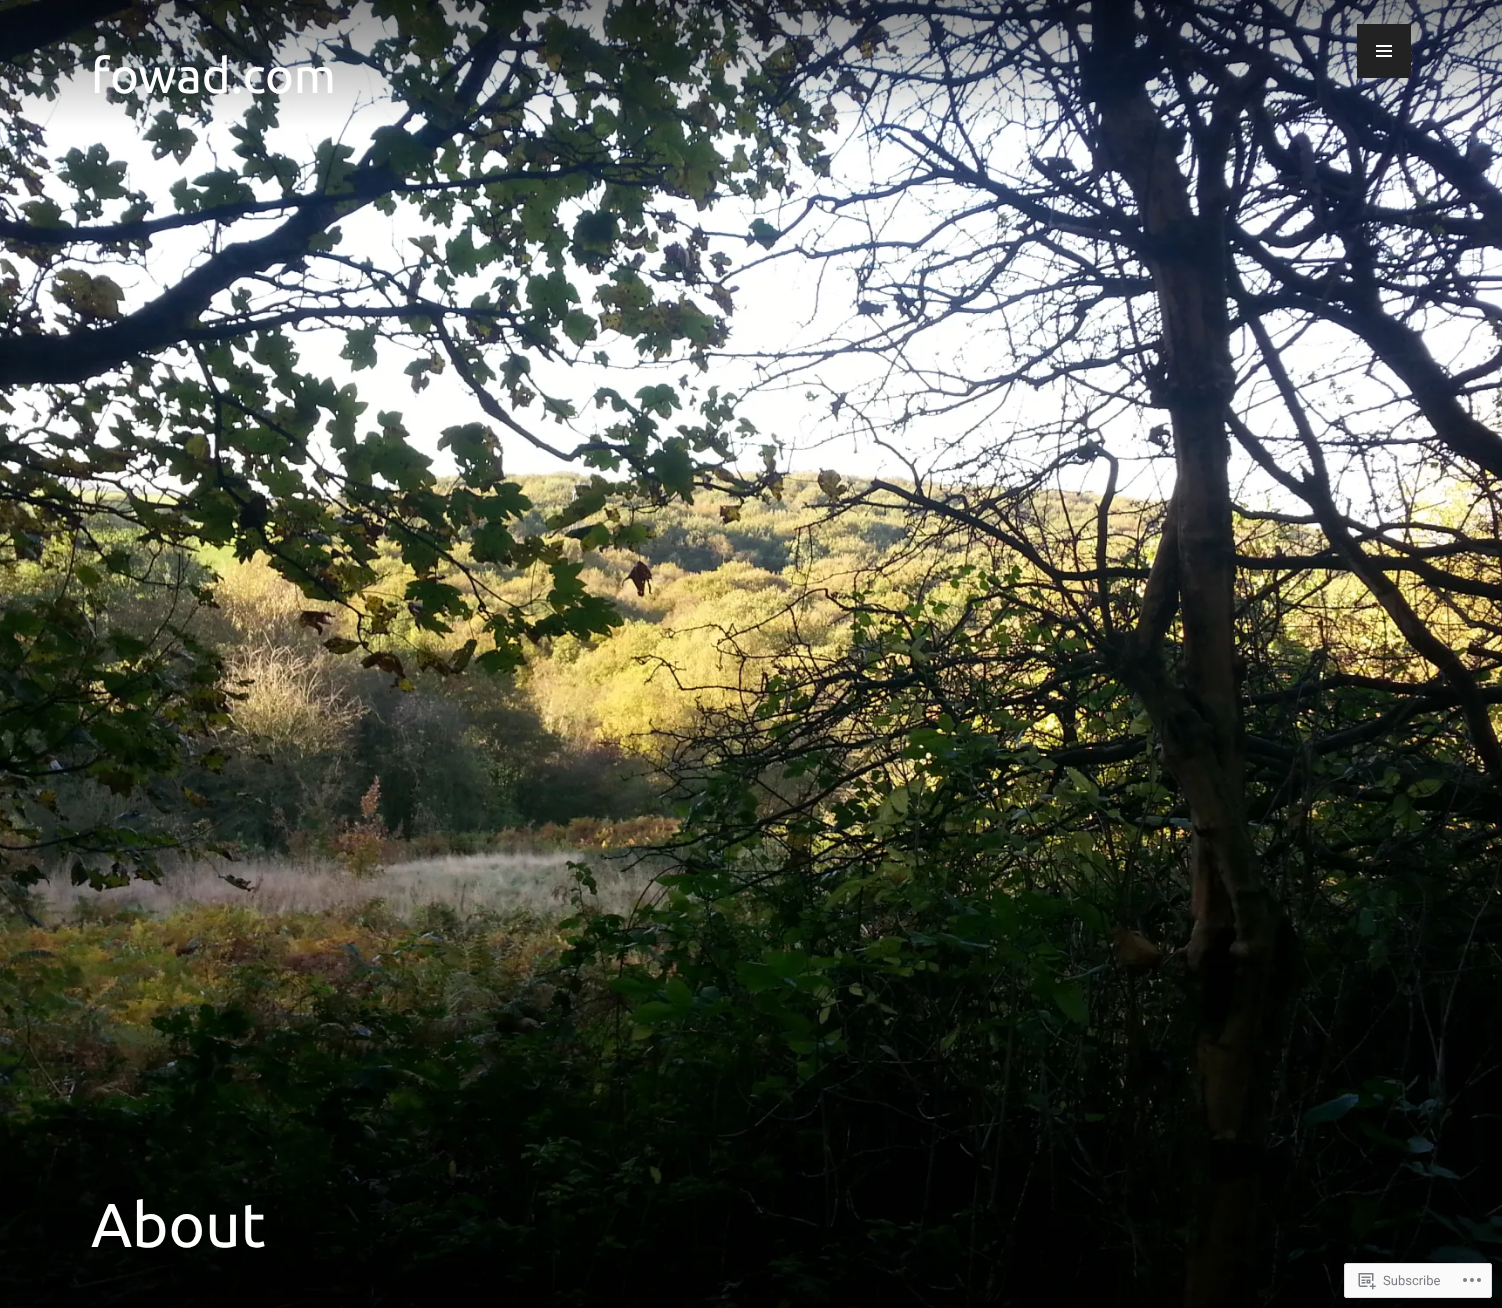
(async () => {
const canvas = document.querySelector("canvas")
canvas.width = 1502
canvas.height = 1308
const c = canvas.getContext("2d")
c.miterLimit = 4
c.fontKerning = "normal"
function T(s,x,y){c.fillText(s,x,y)}
function R(x,y,w,h){c.fillRect(x,y,w,h)}
function Q(x,y,w,h,r){c.beginPath();c.roundRect(x,y,w,h,r);c.fill()}
async function I(src,x,y,w,h){const img=new Image();img.src=src;await img.decode();c.drawImage(img,x,y,w,h)}
c.fillStyle="#fff"
R(0,0,1502,1308)
await I("2.png",0,0,1502,1308)
c.font="49px Ubuntu"
T("fowad.com",91,93)
c.fillStyle="#222"
R(1357,24,54,54)
await I("1.png",1376,45,16,12)
c.font="62px Ubuntu"
c.fillStyle="#fff"
T("About",91,1247)
c.fillStyle="#fffffffa"
Q(1344,1263,148,35,3)
c.beginPath()
c.roundRect(1344.5,1263.5,147,34,2.5)
c.strokeStyle="#dcdcdefa"
c.stroke()
await I("3.png",1358,1273,18,17)
c.font="13px Roboto"
c.fillStyle="#7b7f84"
T("Subscribe",1383,1285)
await I("4.png",1463,1278,18,4)
})()
